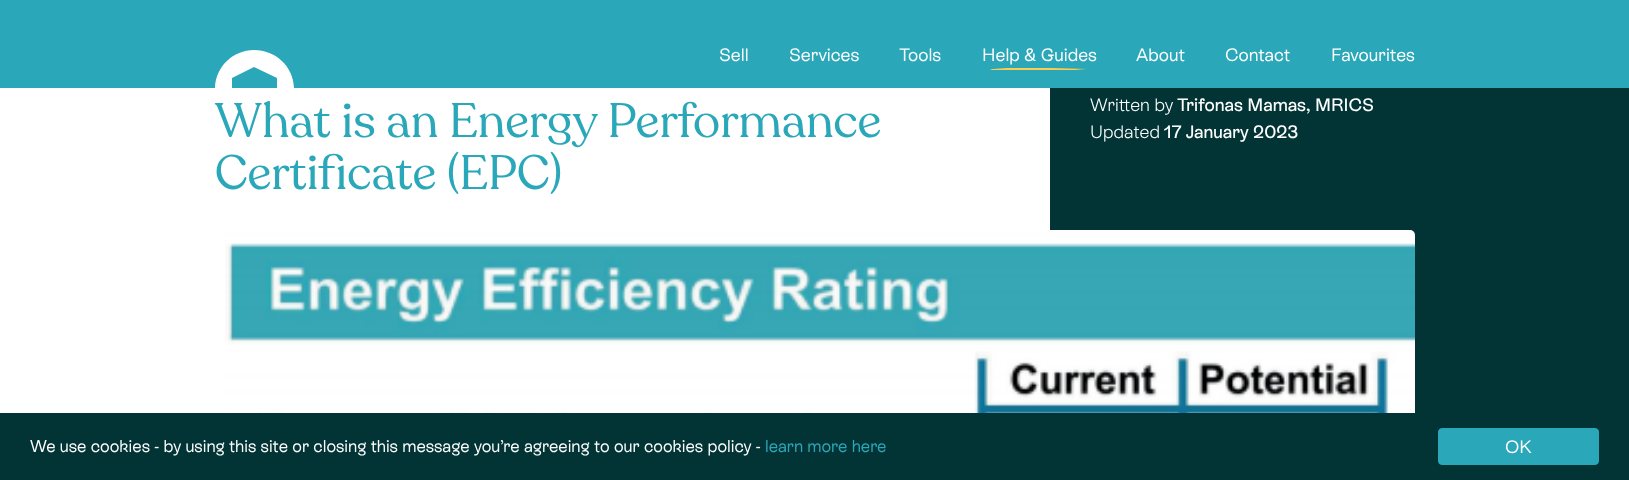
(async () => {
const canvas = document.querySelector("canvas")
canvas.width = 1629
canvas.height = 480
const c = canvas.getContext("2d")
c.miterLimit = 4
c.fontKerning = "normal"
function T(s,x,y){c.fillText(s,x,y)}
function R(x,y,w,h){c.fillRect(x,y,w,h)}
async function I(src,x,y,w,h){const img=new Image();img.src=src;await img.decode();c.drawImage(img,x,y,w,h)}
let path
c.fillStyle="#fff"
R(0,0,1629,480)
c.fillStyle="#2aa8b9"
R(0,0,1629,88)
c.save()
c.beginPath()
c.rect(215,49,79,39)
c.clip()
c.fillStyle="#fff"
path = new Path2D("M294 89c0-22-18-39-40-39c-21 0-39 17-39 39h17v-11l22-11l23 11v11z")
c.fill(path)
c.restore()
c.font="18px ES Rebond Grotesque"
c.fillStyle="#fff"
T("Sell",719,61)
T("Services",789,61)
T("Tools",899,61)
T("Help & Guides",982,61)
c.fillStyle="#ffcd4e"
path = new Path2D("M1070 68h4zm-80 2h49c0 0-1 0 0 0h46h-4h5l-11-1h12c-2 0-1 0 0 0h-2h3l-37-1h-44l-14 1h1c-2 0-3 0-2 0zm89-1h-2zm-43 1h-6zm-7 0h-2zm47-2l5 1zm-14 0h-5z")
c.fill(path)
c.fillStyle="#fff"
T("About",1136,61)
T("Contact",1225,61)
T("Favourites",1331,61)
c.font="48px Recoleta"
c.fillStyle="#2aa8b9"
T("What is an Energy Performance",215,137)
T("Certificate (EPC)",215,189)
c.fillStyle="#023436"
R(1050,88,579,325)
c.font="300 18px ES Rebond Grotesque"
c.fillStyle="#fff"
T("Written by",1090,111)
c.font="500 18px ES Rebond Grotesque"
T("Trifonas Mamas, MRICS",1177,111)
c.font="300 18px ES Rebond Grotesque"
T("Updated",1090,138)
c.font="500 18px ES Rebond Grotesque"
T("17 January 2023",1164,138)
await I("1.png",225,230,1190,183)
c.fillStyle="#023436"
R(0,413,1629,67)
c.font="17px ES Rebond Grotesque"
c.fillStyle="#fff"
T("We use cookies - by using this site or closing this message you’re agreeing to our cookies policy -",30,452)
c.fillStyle="#2aa8b9"
T("learn more here",765,452)
c.beginPath()
c.roundRect(1438.5,428.5,160,36,3.5)
c.fill()
c.strokeStyle="#2aa8b9"
c.stroke()
c.font="18px ES Rebond Grotesque"
c.fillStyle="#fff"
T("OK",1505,453)
})()
